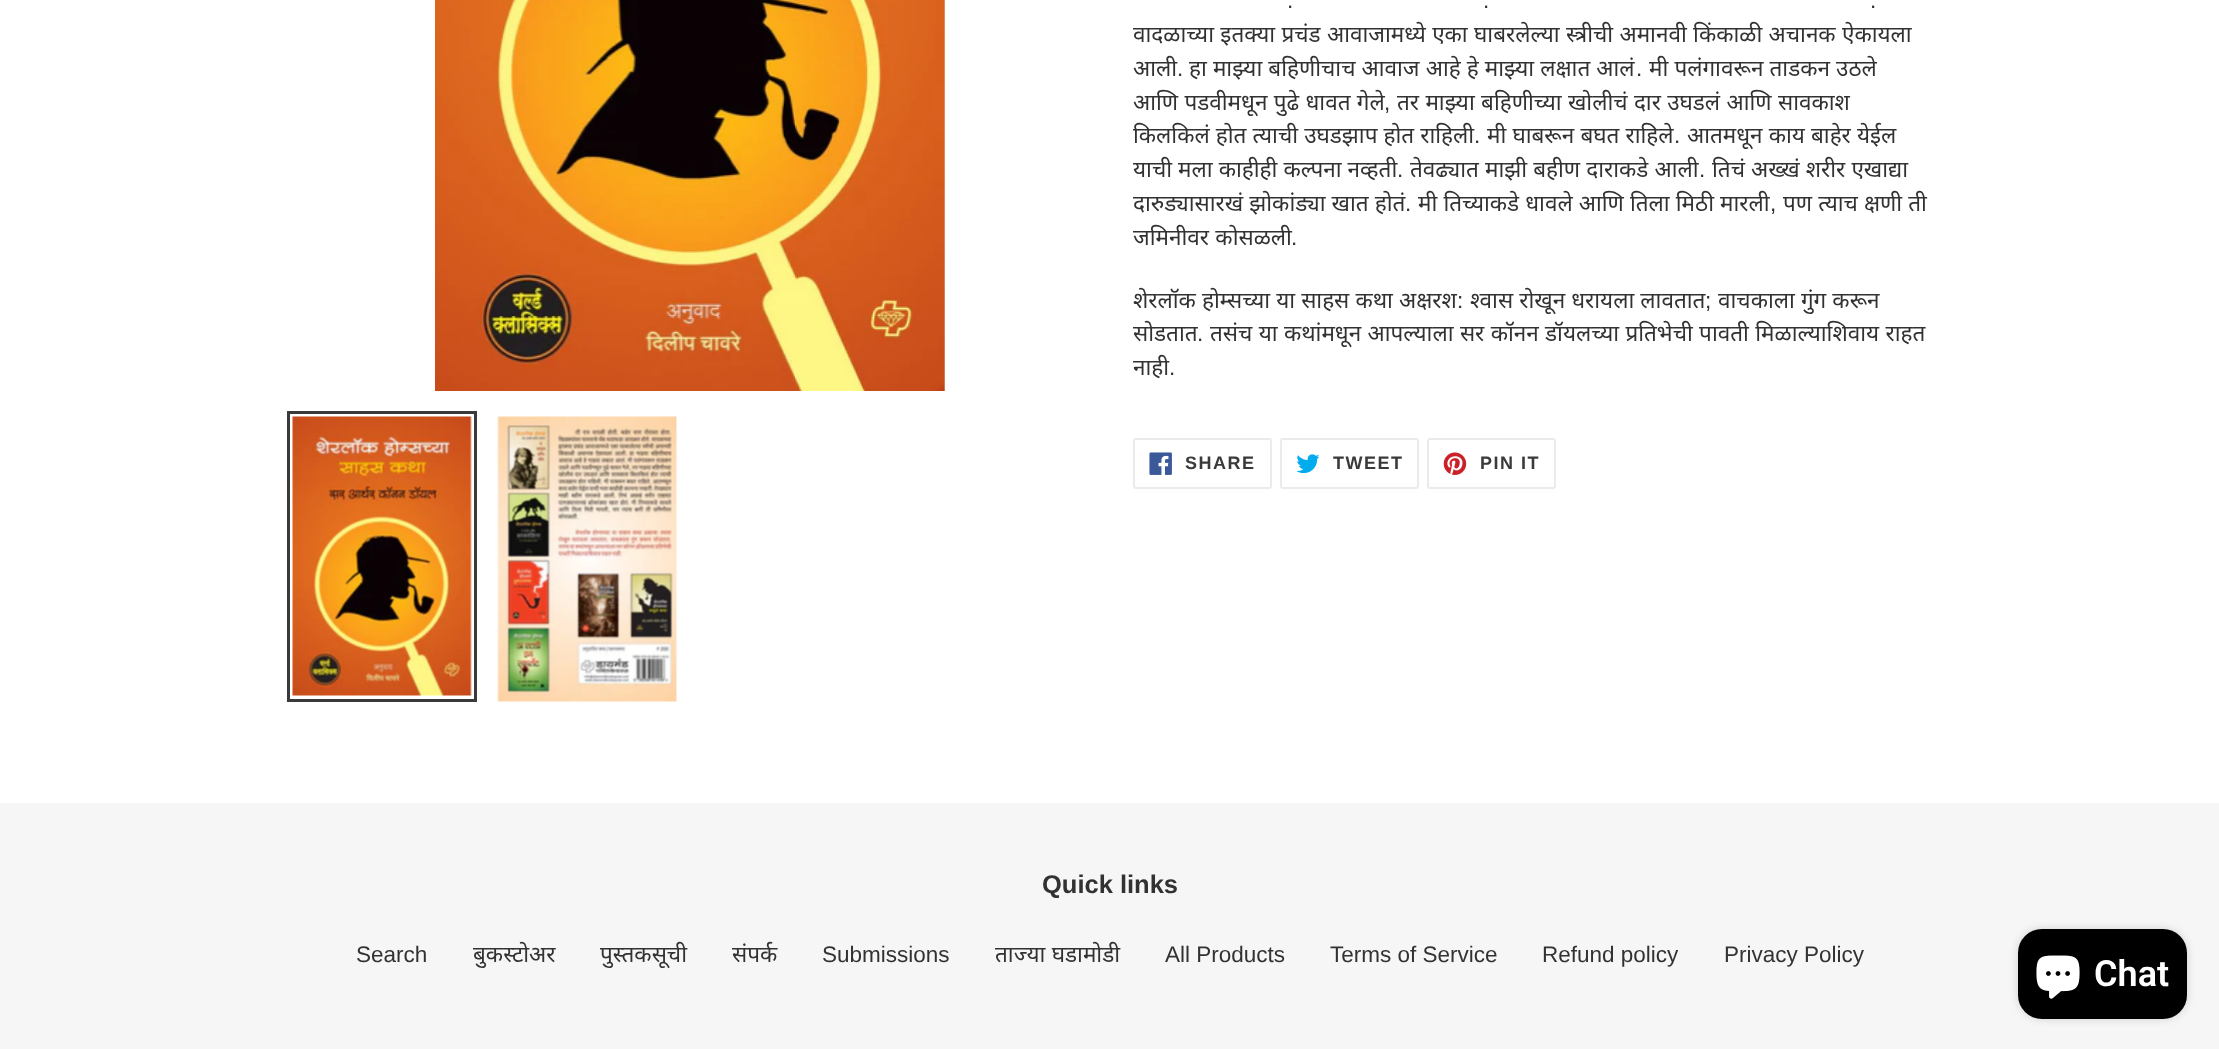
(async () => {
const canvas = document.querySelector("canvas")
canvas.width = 2219
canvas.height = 1049
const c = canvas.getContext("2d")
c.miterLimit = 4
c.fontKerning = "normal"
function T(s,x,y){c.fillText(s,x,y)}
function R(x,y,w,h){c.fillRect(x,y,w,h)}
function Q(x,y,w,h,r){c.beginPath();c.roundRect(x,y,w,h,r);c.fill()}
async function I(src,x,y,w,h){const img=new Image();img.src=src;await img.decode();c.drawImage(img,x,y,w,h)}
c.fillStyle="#fff"
R(0,0,2219,1049)
await I("1.png",435,0,510,391)
c.strokeStyle="#3a3a3a"
c.lineWidth=3
c.strokeRect(288.5,412.5,187,288)
await I("2.png",292,416,180,280)
await I("3.png",497,416,180,286)
c.font="22.5px Liberation Sans"
c.fillStyle="#333232"
T(".",1287,8)
T(".",1483,8)
T(".",1870,8)
c.wordSpacing="0.5px"
c.font="22.5px Noto Sans"
T("वादळाच्या इतक्या प्रचंड आवाजामध्ये एका घाबरलेल्या स्त्रीची अमानवी किंकाळी अचानक ऐकायला",1133,42)
c.wordSpacing="0px"
T("आली",1133,76)
c.font="22.5px Liberation Sans"
T(".",1177,76)
c.wordSpacing="0.25px"
c.font="22.5px Noto Sans"
T("हा माझ्या बहिणीचाच आवाज आहे हे माझ्या लक्षात आलं",1189,76)
c.wordSpacing="0px"
c.font="22.5px Liberation Sans"
T(".",1636,76)
c.wordSpacing="0.25px"
c.font="22.5px Noto Sans"
T("मी पलंगावरून ताडकन उठले",1649,76)
c.wordSpacing="0.5px"
T("आणि पडवीमधून पुढे धावत गेले",1133,110)
c.wordSpacing="0px"
c.font="22.5px Liberation Sans"
T(",",1384,110)
c.wordSpacing="0.5px"
c.font="22.5px Noto Sans"
T("तर माझ्या बहिणीच्या खोलीचं दार उघडलं आणि सावकाश",1397,110)
c.wordSpacing="0.25px"
T("किलकिलं होत त्याची उघडझाप होत राहिली",1133,143)
c.wordSpacing="0px"
c.font="22.5px Liberation Sans"
T(".",1474,143)
c.wordSpacing="0.25px"
c.font="22.5px Noto Sans"
T("मी घाबरून बघत राहिले",1487,143)
c.wordSpacing="0px"
c.font="22.5px Liberation Sans"
T(".",1674,143)
c.wordSpacing="0.25px"
c.font="22.5px Noto Sans"
T("आतमधून काय बाहेर येईल",1687,143)
T("याची मला काहीही कल्पना नव्हती",1133,177)
c.wordSpacing="0px"
c.font="22.5px Liberation Sans"
T(".",1397,177)
c.wordSpacing="0.25px"
c.font="22.5px Noto Sans"
T("तेवढ्यात माझी बहीण दाराकडे आली",1410,177)
T("तिचं अख्खं शरीर एखाद्या",1712,177)
c.wordSpacing="0px"
c.font="22.5px Liberation Sans"
T(".",1699,177)
c.wordSpacing="0.25px"
c.font="22.5px Noto Sans"
T("दारुड्यासारखं झोकांड्या खात होतं",1133,211)
c.wordSpacing="0px"
c.font="22.5px Liberation Sans"
T(".",1405,211)
c.wordSpacing="0.25px"
c.font="22.5px Noto Sans"
T("मी तिच्याकडे धावले आणि तिला मिठी मारली",1418,211)
c.wordSpacing="0px"
c.font="22.5px Liberation Sans"
T(",",1770,211)
c.wordSpacing="0.25px"
c.font="22.5px Noto Sans"
T("पण त्याच क्षणी ती",1783,211)
c.wordSpacing="0.5px"
T("जमिनीवर कोसळली",1133,245)
c.wordSpacing="0px"
c.font="22.5px Liberation Sans"
T(".",1291,245)
c.wordSpacing="0.25px"
c.font="22.5px Noto Sans"
T("शेरलॉक होम्सच्या या साहस कथा अक्षरश",1133,308)
c.wordSpacing="0px"
c.font="22.5px Liberation Sans"
T(":",1457,308)
c.wordSpacing="0.25px"
c.font="22.5px Noto Sans"
T("श्वास रोखून धरायला लावतात",1470,308)
c.wordSpacing="0px"
c.font="22.5px Liberation Sans"
T(";",1705,308)
c.wordSpacing="0.25px"
c.font="22.5px Noto Sans"
T("वाचकाला गुंग करून",1718,308)
c.wordSpacing="0px"
T("सोडतात",1133,341)
c.font="22.5px Liberation Sans"
T(".",1197,341)
c.wordSpacing="0.5px"
c.font="22.5px Noto Sans"
T("तसंच या कथांमधून आपल्याला सर कॉनन डॉयलच्या प्रतिभेची पावती मिळाल्याशिवाय राहत",1210,341)
c.wordSpacing="0px"
T("नाही",1133,375)
c.font="22.5px Liberation Sans"
T(".",1169,375)
c.beginPath()
c.roundRect(1134,439,137,49,2)
c.strokeStyle="#ebebeb"
c.lineWidth=2
c.stroke()
await I("4.png",1149,452,23,23)
c.letterSpacing="1.5px"
c.font="bold 18px Liberation Sans"
c.fillStyle="#3a3a3a"
T("SHARE",1185,469)
c.beginPath()
c.roundRect(1281,439,137,49,2)
c.stroke()
await I("5.png",1296,454,24,20)
T("TWEET",1333,469)
c.beginPath()
c.roundRect(1428,439,127,49,2)
c.stroke()
await I("6.png",1443,452,24,23)
T("PIN IT",1480,469)
c.fillStyle="#f6f6f6"
R(0,803,2219,246)
c.letterSpacing="0px"
c.font="bold 25.5px Liberation Sans"
c.fillStyle="#333232"
T("Quick links",1042,893)
c.font="22.5px Liberation Sans"
T("Search",356,962)
c.font="22.5px Noto Sans"
T("बुकस्टोअर",473,962)
T("पुस्तकसूची",600,962)
T("संपर्क",732,962)
c.font="22.5px Liberation Sans"
T("Submissions",822,962)
c.wordSpacing="0.5px"
c.font="22.5px Noto Sans"
T("ताज्या घडामोडी",995,962)
c.wordSpacing="0px"
c.font="22.5px Liberation Sans"
T("All Products",1165,962)
T("Terms of Service",1330,962)
T("Refund policy",1542,962)
T("Privacy Policy",1724,962)
c.fillStyle="#00000026"
c.filter="blur(4px)"
c.beginPath()
c.roundRect(2018,929,169,90,24)
c.fill()
c.filter="none"
c.fillStyle="#000"
Q(2018,929,169,90,24)
await I("7.png",2036,955,44,44)
c.font="600 36px Roboto"
c.fillStyle="#fff"
T("Chat",2094,986)
})()
